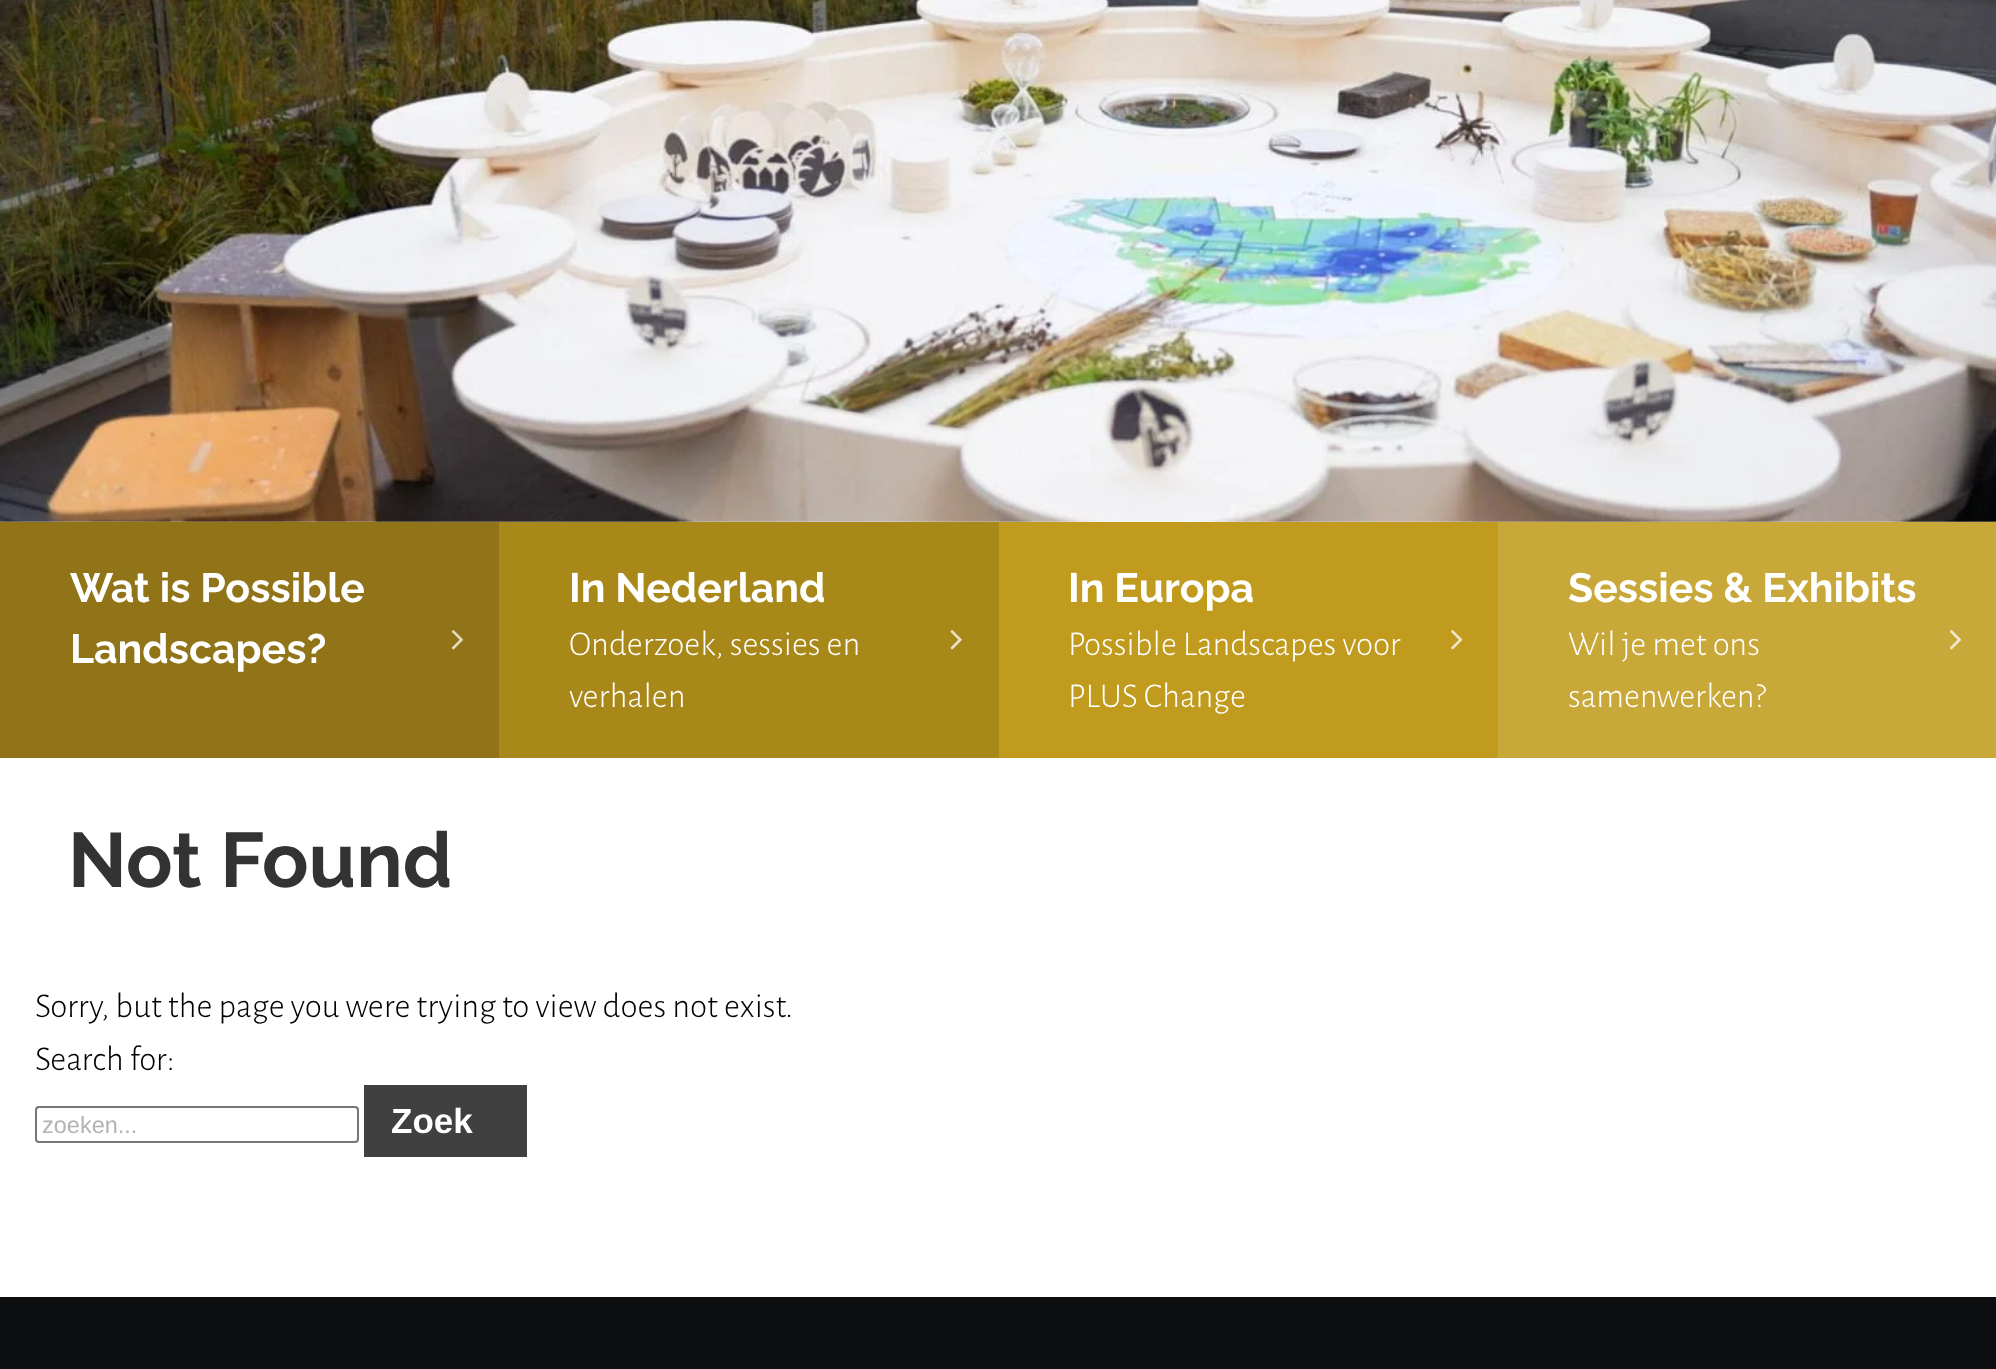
(async () => {
const canvas = document.querySelector("canvas")
canvas.width = 1996
canvas.height = 1369
const c = canvas.getContext("2d")
c.miterLimit = 4
c.fontKerning = "normal"
function T(s,x,y){c.fillText(s,x,y)}
function R(x,y,w,h){c.fillRect(x,y,w,h)}
async function I(src,x,y,w,h){const img=new Image();img.src=src;await img.decode();c.drawImage(img,x,y,w,h)}
c.fillStyle="#fff"
R(0,0,1996,1369)
await I("1.png",0,0,1996,522)
c.fillStyle="#c19b1e"
R(999,522,499,236)
c.fillStyle="#917417"
R(0,522,499,236)
c.font="bold 41px Raleway"
c.fillStyle="#fff"
T("Wat is Possible",70,602)
T("Landscapes?",70,663)
await I("2.png",451,630,13,20)
c.fillStyle="#a9881a"
R(499,522,500,236)
c.fillStyle="#fff"
T("In Nederland",569,602)
c.font="300 35px Alegreya Sans"
T("Onderzoek, sessies en",569,655)
T("verhalen",569,707)
await I("3.png",950,630,12,20)
c.font="bold 41px Raleway"
T("In Europa",1068,602)
c.font="300 35px Alegreya Sans"
T("Possible Landscapes voor",1068,655)
T("PLUS Change",1068,707)
await I("4.png",1451,630,12,20)
c.fillStyle="#c9a83a"
R(1498,522,498,236)
c.font="bold 41px Raleway"
c.fillStyle="#fff"
T("Sessies & Exhibits",1568,602)
c.font="300 35px Alegreya Sans"
T("Wil je met ons",1568,655)
T("samenwerken?",1568,707)
await I("5.png",1949,630,13,20)
c.font="bold 77px Raleway"
c.fillStyle="#333"
T("Not Found",68,887)
c.font="300 35px Alegreya Sans"
c.fillStyle="#000"
T("Sorry, but the page you were trying to view does not exist.",35,1017)
T("Search for:",35,1070)
c.beginPath()
c.roundRect(36,1107,322,35,3)
c.strokeStyle="#767676"
c.lineWidth=2
c.stroke()
c.font="23.5px Liberation Sans"
c.fillStyle="#b3b3b3"
T("zoeken...",42,1133)
c.fillStyle="#404040"
R(364,1085,163,72)
c.font="bold 35px Liberation Sans"
c.fillStyle="#fff"
T("Zoek",391,1133)
c.fillStyle="#0d0e10"
R(0,1297,1996,72)
})()
